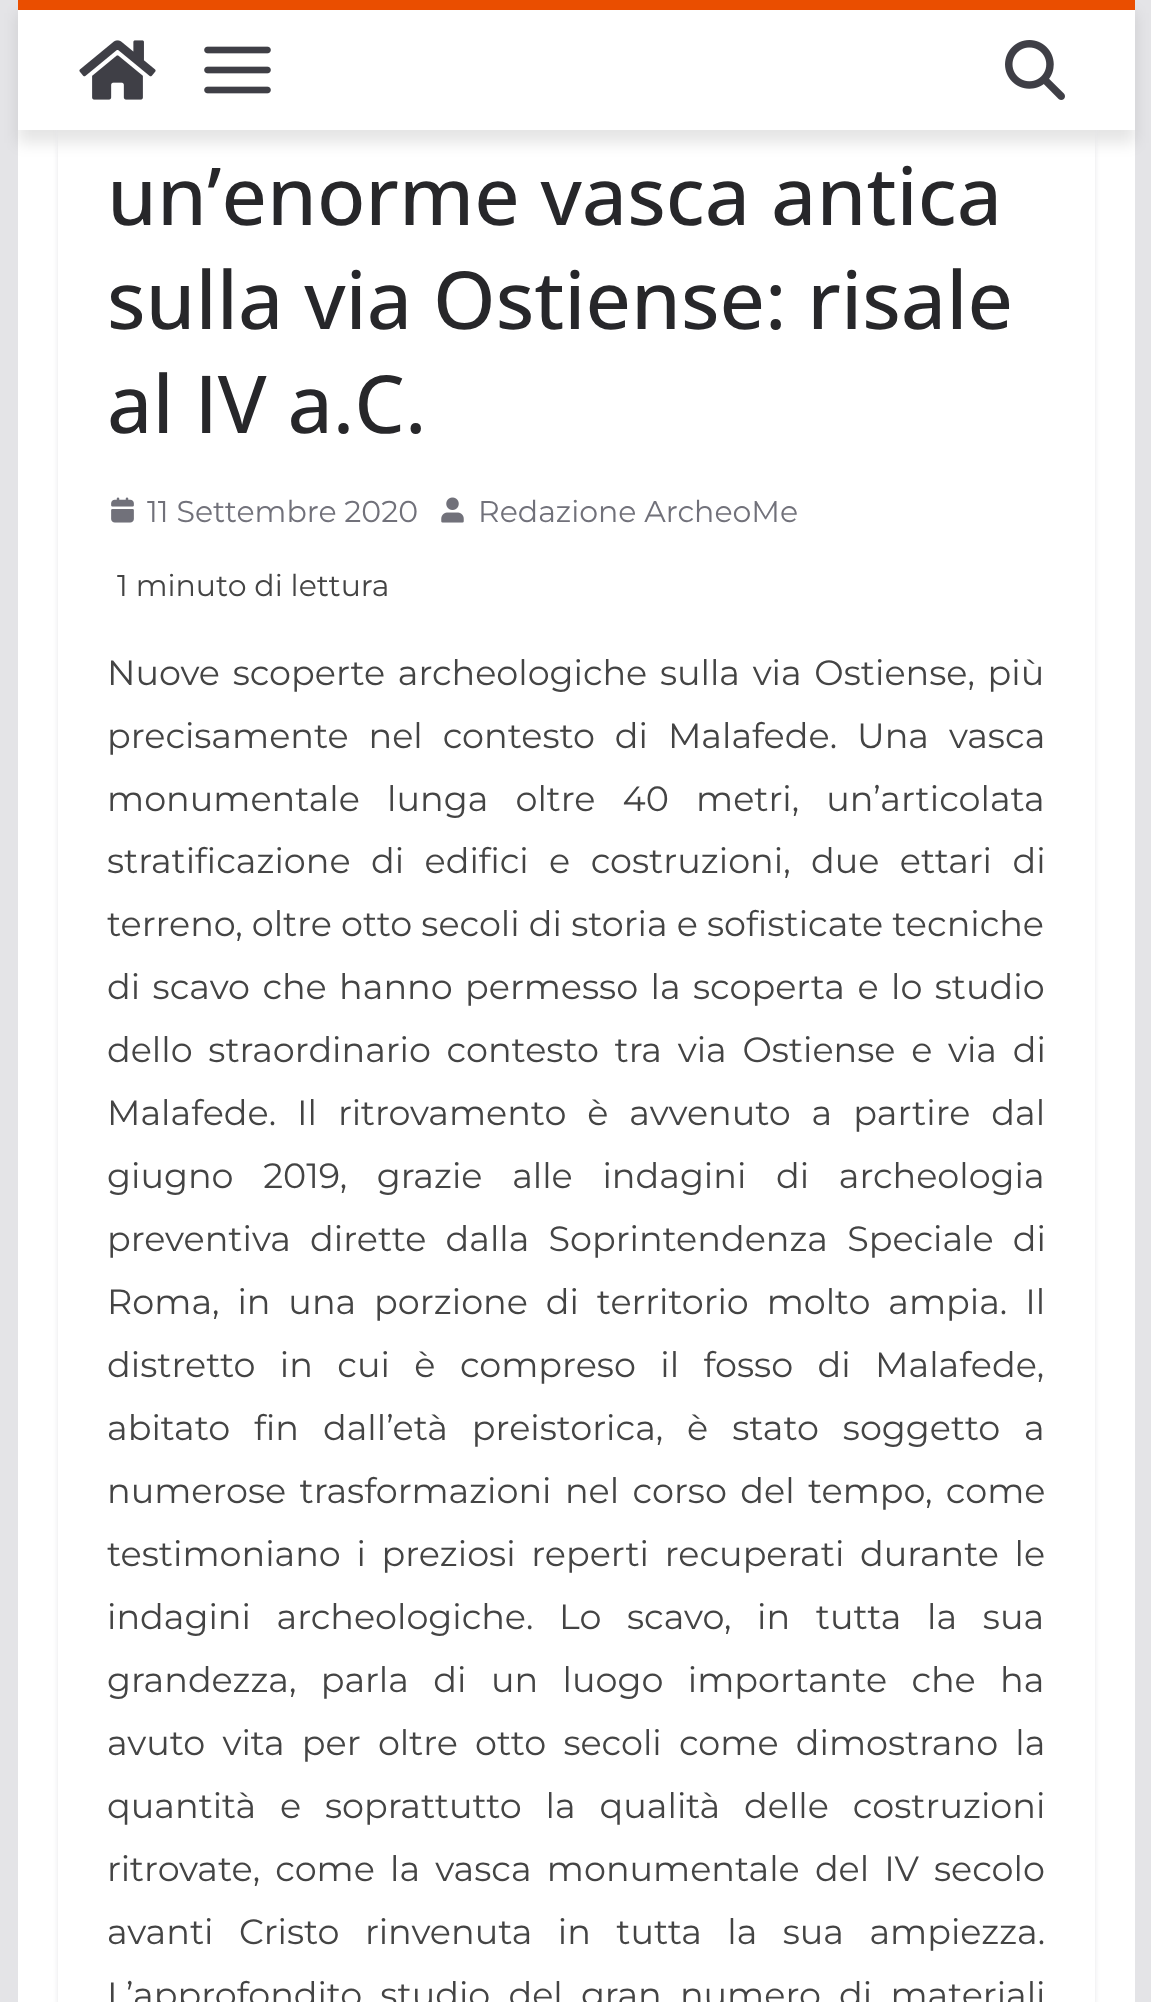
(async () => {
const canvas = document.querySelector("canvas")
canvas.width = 1151
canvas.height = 2002
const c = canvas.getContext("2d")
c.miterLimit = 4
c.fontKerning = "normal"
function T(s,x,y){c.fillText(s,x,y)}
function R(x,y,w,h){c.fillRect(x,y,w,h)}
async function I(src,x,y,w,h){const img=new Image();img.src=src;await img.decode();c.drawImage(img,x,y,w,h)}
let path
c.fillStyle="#e4e4e7"
R(0,0,1151,2002)
c.fillStyle="#fff"
R(18,130,1117,1872)
c.fillStyle="#0000001a"
c.filter="blur(7.5px)"
c.beginPath()
c.rect(18,13,1117,130)
c.fill()
c.filter="none"
c.save()
path = new Path2D("M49 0h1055v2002h-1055zm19-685h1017c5.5 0 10 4.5 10 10v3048c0 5.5-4.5 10-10 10h-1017c-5.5 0-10-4.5-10-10v-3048c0-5.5 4.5-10 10-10z")
c.clip(path,"evenodd")
c.fillStyle="#e4e4e7"
c.filter="blur(2.5px)"
c.beginPath()
c.roundRect(58,-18,1037,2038,10)
c.fill()
c.filter="none"
c.restore()
c.fillStyle="#fff"
R(18,10,1117,120)
c.fillStyle="#ea4e00"
R(18,0,1117,10)
await I("1.png",79,40,77,60)
await I("2.png",204,46,67,48)
await I("3.png",1005,40,60,60)
c.font="500 80px Open Sans"
c.fillStyle="#27272a"
T("un’enorme vasca antica",107,225)
T("sulla via Ostiense: risale",107,329)
T("al IV a.C.",107,433)
await I("4.png",111,497,23,26)
c.font="100 30px Montserrat"
c.fillStyle="#71717a"
T("11 Settembre 2020",147,522)
await I("5.png",441,497,23,26)
T("Redazione ArcheoMe",478,522)
c.fillStyle="#444"
T("1 minuto di lettura",117,596)
c.wordSpacing="3.5px"
c.font="100 35px Montserrat"
T("Nuove scoperte archeologiche sulla via Ostiense, più",107,685)
c.wordSpacing="10.75px"
T("precisamente nel contesto di Malafede. Una vasca",107,748)
c.wordSpacing="18px"
T("monumentale lunga oltre 40 metri, un’articolata",107,811)
c.wordSpacing="11.25px"
T("stratificazione di edifici e costruzioni, due ettari di",107,873)
c.wordSpacing="0px"
T("terreno, oltre otto secoli di storia e sofisticate tecniche",107,936)
c.wordSpacing="3.25px"
T("di scavo che hanno permesso la scoperta e lo studio",107,999)
c.wordSpacing="6.5px"
T("dello straordinario contesto tra via Ostiense e via di",107,1062)
c.wordSpacing="11.75px"
T("Malafede. Il ritrovamento è avvenuto a partire dal",107,1125)
c.wordSpacing="20.5px"
T("giugno 2019, grazie alle indagini di archeologia",107,1188)
c.wordSpacing="10px"
T("preventiva dirette dalla Soprintendenza Speciale di",107,1251)
c.wordSpacing="8.75px"
T("Roma, in una porzione di territorio molto ampia. Il",107,1314)
c.wordSpacing="15.25px"
T("distretto in cui è compreso il fosso di Malafede,",107,1377)
c.wordSpacing="14.75px"
T("abitato fin dall’età preistorica, è stato soggetto a",107,1440)
c.wordSpacing="4.25px"
T("numerose trasformazioni nel corso del tempo, come",107,1503)
c.wordSpacing="6.5px"
T("testimoniano i preziosi reperti recuperati durante le",107,1566)
c.wordSpacing="16.5px"
T("indagini archeologiche. Lo scavo, in tutta la sua",107,1629)
c.wordSpacing="15.25px"
T("grandezza, parla di un luogo importante che ha",107,1692)
c.wordSpacing="8px"
T("avuto vita per oltre otto secoli come dimostrano la",107,1755)
c.wordSpacing="14.75px"
T("quantità e soprattutto la qualità delle costruzioni",107,1818)
c.wordSpacing="6px"
T("ritrovate, come la vasca monumentale del IV secolo",107,1881)
c.wordSpacing="16.25px"
T("avanti Cristo rinvenuta in tutta la sua ampiezza.",107,1944)
c.wordSpacing="9px"
T("L’approfondito studio del gran numero di materiali",107,2007)
})()
